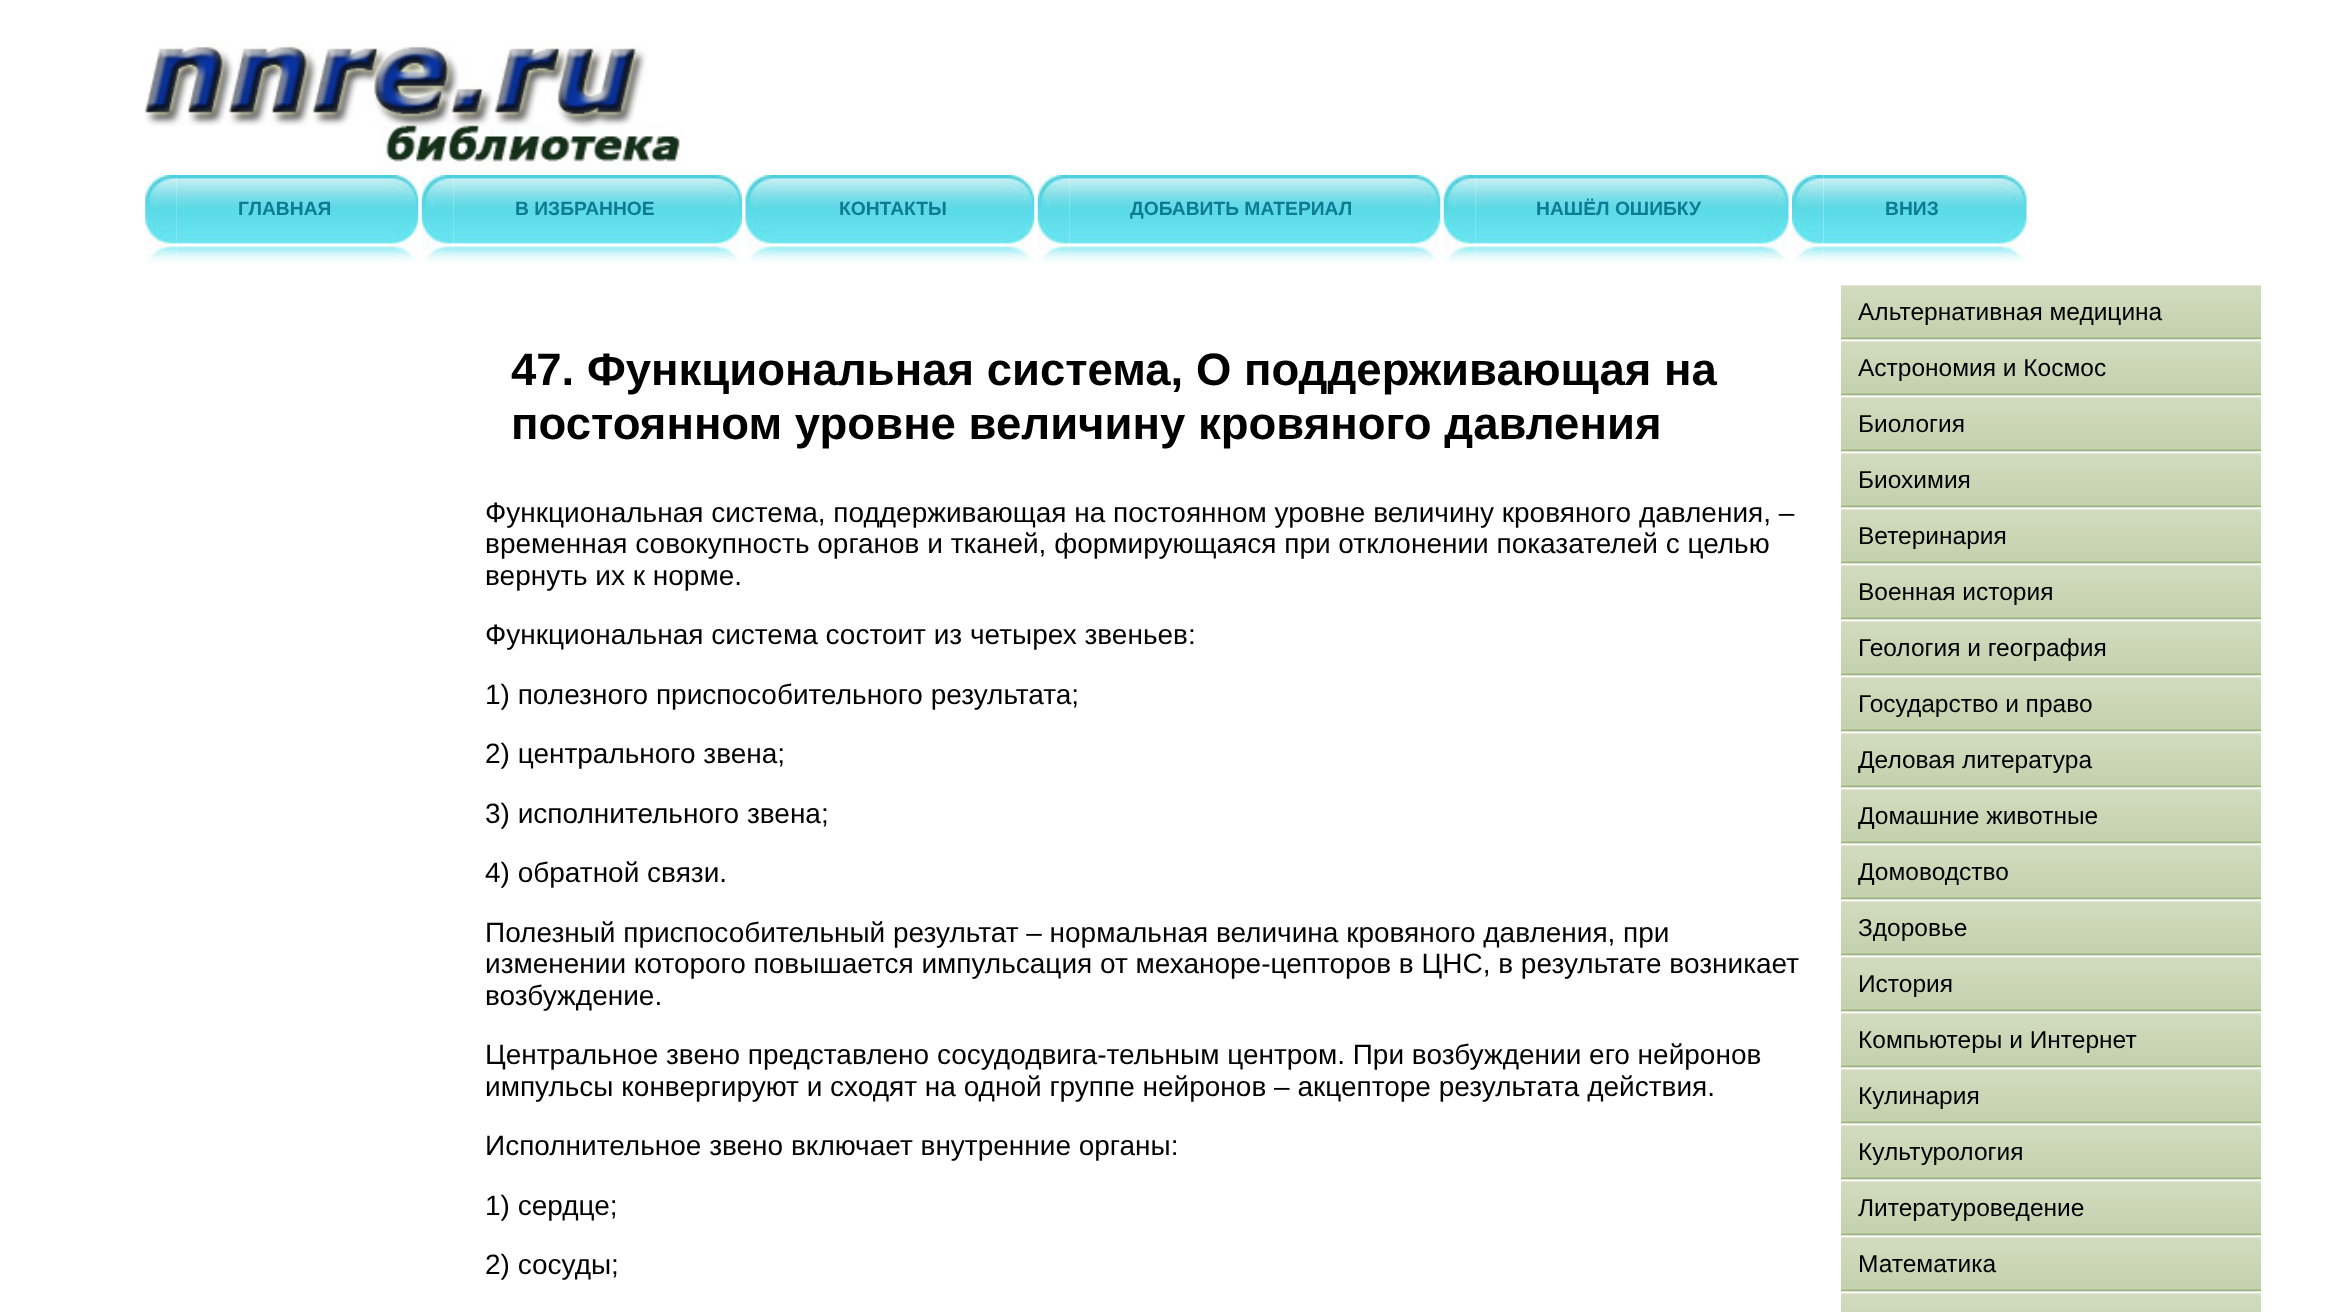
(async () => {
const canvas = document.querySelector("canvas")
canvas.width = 2352
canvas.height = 1312
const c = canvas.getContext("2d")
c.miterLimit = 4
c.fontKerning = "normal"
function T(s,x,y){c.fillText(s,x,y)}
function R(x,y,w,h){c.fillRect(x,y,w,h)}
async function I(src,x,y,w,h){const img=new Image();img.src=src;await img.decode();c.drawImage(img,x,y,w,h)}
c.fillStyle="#fff"
R(0,0,2352,1312)
await I("1.png",144,42,542,126)
await I("2.png",145,175,32,88)
await I("3.png",176,175,243,88)
c.font="bold 19.25px Liberation Sans"
c.fillStyle="#0e7b93"
T("ГЛАВНАЯ",238,215)
await I("4.png",421,175,33,88)
await I("5.png",453,175,289,88)
T("В ИЗБРАННОЕ",515,215)
await I("6.png",745,175,32,88)
await I("7.png",777,175,258,88)
T("КОНТАКТЫ",839,215)
await I("4.png",1037,175,33,88)
await I("8.png",1069,175,372,88)
T("ДОБАВИТЬ МАТЕРИАЛ",1130,215)
await I("9.png",1443,175,33,88)
await I("10.png",1475,175,314,88)
T("НАШЁЛ ОШИБКУ",1536,215)
await I("11.png",1792,175,32,88)
await I("12.png",1823,175,204,88)
T("ВНИЗ",1885,215)
c.font="bold 45.5px Liberation Sans"
c.fillStyle="#000"
T("47. Функциональная система, О поддерживающая на",511,385)
T("постоянном уровне величину кровяного давления",511,439)
c.font="28px Liberation Sans"
T("Функциональная система, поддерживающая на постоянном уровне величину кровяного давления, –",485,522)
T("временная совокупность органов и тканей, формирующаяся при отклонении показателей с целью",485,553)
T("вернуть их к норме.",485,585)
T("Функциональная система состоит из четырех звеньев:",485,644)
T("1) полезного приспособительного результата;",485,704)
T("2) центрального звена;",485,763)
T("3) исполнительного звена;",485,823)
T("4) обратной связи.",485,882)
T("Полезный приспособительный результат – нормальная величина кровяного давления, при",485,942)
T("изменении которого повышается импульсация от механоре-цепторов в ЦНС, в результате возникает",485,973)
T("возбуждение.",485,1005)
T("Центральное звено представлено сосудодвига-тельным центром. При возбуждении его нейронов",485,1064)
T("импульсы конвергируют и сходят на одной группе нейронов – акцепторе результата действия.",485,1096)
T("Исполнительное звено включает внутренние органы:",485,1155)
T("1) сердце;",485,1215)
T("2) сосуды;",485,1274)
await I("13.png",1841,285,420,55)
c.font="24.5px Liberation Sans"
T("Альтернативная медицина",1858,320)
await I("14.png",1841,339,420,57)
T("Астрономия и Космос",1858,376)
await I("14.png",1841,395,420,57)
T("Биология",1858,432)
await I("14.png",1841,451,420,57)
T("Биохимия",1858,488)
await I("14.png",1841,507,420,57)
T("Ветеринария",1858,544)
await I("14.png",1841,563,420,57)
T("Военная история",1858,600)
await I("14.png",1841,619,420,57)
T("Геология и география",1858,656)
await I("14.png",1841,675,420,57)
T("Государство и право",1858,712)
await I("14.png",1841,731,420,57)
T("Деловая литература",1858,768)
await I("14.png",1841,787,420,57)
T("Домашние животные",1858,824)
await I("14.png",1841,843,420,57)
T("Домоводство",1858,880)
await I("14.png",1841,899,420,57)
T("Здоровье",1858,936)
await I("14.png",1841,955,420,57)
T("История",1858,992)
await I("14.png",1841,1011,420,57)
T("Компьютеры и Интернет",1858,1048)
await I("14.png",1841,1067,420,57)
T("Кулинария",1858,1104)
await I("14.png",1841,1123,420,57)
T("Культурология",1858,1160)
await I("14.png",1841,1179,420,57)
T("Литературоведение",1858,1216)
await I("14.png",1841,1235,420,57)
T("Математика",1858,1272)
await I("15.png",1841,1291,420,21)
})()
